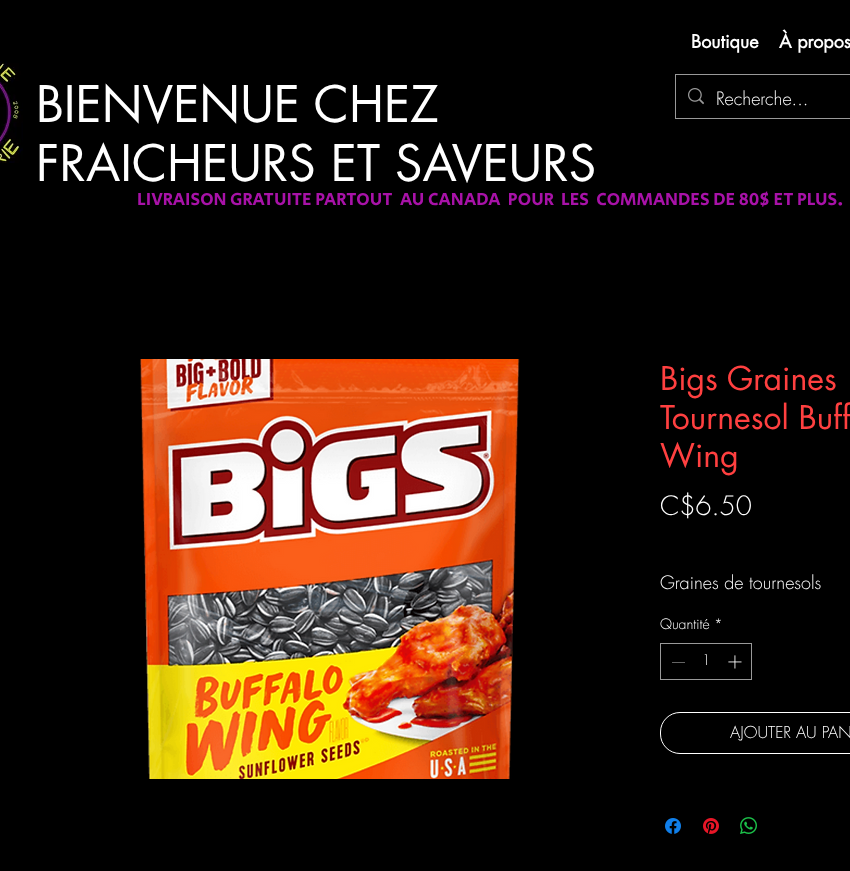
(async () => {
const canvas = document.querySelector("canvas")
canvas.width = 850
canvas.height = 871
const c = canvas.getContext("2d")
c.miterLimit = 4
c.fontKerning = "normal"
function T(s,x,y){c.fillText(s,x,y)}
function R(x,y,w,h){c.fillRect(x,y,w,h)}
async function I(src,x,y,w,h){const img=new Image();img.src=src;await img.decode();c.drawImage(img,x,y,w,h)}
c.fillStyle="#000"
R(0,0,850,871)
c.font="bold 18px futura"
c.fillStyle="#fff"
T("Boutique",691,48)
T("À propos",779,48)
await I("1.png",0,61,23,102)
c.font="49px futura"
T("BIENVENUE CHEZ",36,122)
T("FRAICHEURS ET SAVEURS",36,181)
c.strokeStyle="#999"
c.strokeRect(675.5,74.5,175,44)
await I("2.png",688,88,16,17)
c.font="300 18px futura"
T("Recherche...",716,105)
c.font="18px Secular One"
c.fillStyle="#a812a8"
T("LIVRAISON GRATUITE PARTOUT  AU CANADA  POUR  LES  COMMANDES DE 80$ ET PLUS.",137,205)
await I("3.png",140,359,380,420)
c.font="32px futura"
c.fillStyle="#ff4040"
T("Bigs Graines",660,390)
T("Tournesol Buff",660,429)
T("Wing",660,467)
c.font="300 26px futura"
c.fillStyle="#fff"
T("C$6.50",660,515)
c.font="300 18px futura"
T("Graines de tournesols",660,589)
c.save()
c.beginPath()
c.rect(660,571,179,24)
c.clip()
c.font="18px Liberation Sans"
T("￼",821,589)
c.restore()
c.font="300 14px futura"
T("Quantité",660,629)
T("*",714,629)
c.strokeRect(660.5,643.5,91,36)
c.fillStyle="#646464"
R(672,662,13,1)
c.fillStyle="#fff"
T("1",702,665)
await I("4.png",728,655,14,14)
c.beginPath()
c.roundRect(660.5,712.5,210,41,19.5)
c.strokeStyle="#fff"
c.stroke()
c.font="300 16px futura"
T("AJOUTER AU PAN",730,738)
await I("5.png",665,818,16,16)
await I("6.png",703,818,16,16)
await I("7.png",740,817,17,17)
})()
